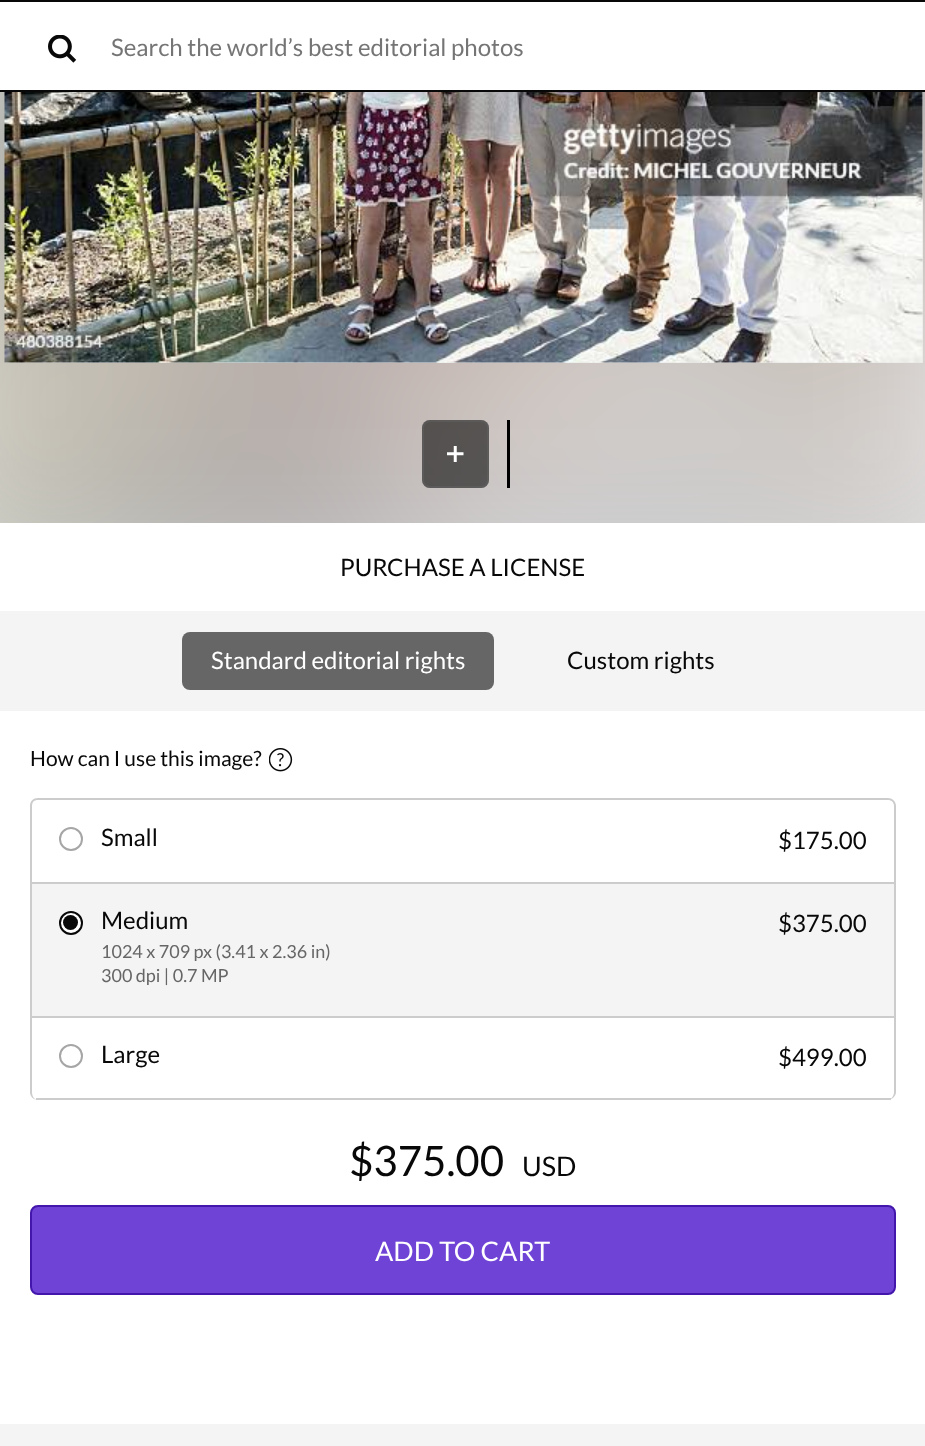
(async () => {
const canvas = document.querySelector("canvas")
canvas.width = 925
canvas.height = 1446
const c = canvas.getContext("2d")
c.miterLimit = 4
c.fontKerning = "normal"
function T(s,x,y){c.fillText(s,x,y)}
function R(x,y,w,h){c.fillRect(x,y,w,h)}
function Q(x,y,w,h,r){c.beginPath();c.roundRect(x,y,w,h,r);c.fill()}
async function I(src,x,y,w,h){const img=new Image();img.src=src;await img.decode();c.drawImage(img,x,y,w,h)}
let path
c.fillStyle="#fff"
R(0,0,925,1446)
c.fillStyle="#080808"
R(0,0,925,2)
R(0,90,925,2)
await I("1.png",48,35,29,28)
c.font="24px Lato"
c.fillStyle="#757575"
T("Search the world’s best editorial photos",111,56)
await I("2.png",0,92,925,431)
c.fillStyle="#e6e6e6"
R(5,92,918,271)
await I("3.png",4,92,919,271)
c.fillStyle="#08080899"
Q(422,420,67,68,8)
c.beginPath()
c.roundRect(423,421,65,66,7)
c.strokeStyle="#66666666"
c.lineWidth=2
c.stroke()
await I("4.png",447,446,17,16)
c.fillStyle="#000"
R(507,420,3,68)
c.fillStyle="#080808"
T("PURCHASE A LICENSE",340,576)
c.fillStyle="#f4f4f4"
R(0,611,925,100)
c.fillStyle="#666"
Q(182,632,312,58,8)
c.fillStyle="#fff"
T("Standard editorial rights",211,669)
c.fillStyle="#080808"
T("Custom rights",567,669)
c.font="21px Lato"
T("How can I use this image?",30,766)
await I("5.png",269,748,24,24)
c.fillStyle="#ccc"
path = new Path2D("M38 798h850c4 0 8 3 8 8v286c0 4-4 8-8 8h-850c-5 0-8-4-8-8v-286c0-5 3-8 8-8zm0 2h850c3 0 6 2 6 6v286c0 4-3 8-6 8h-850c-4 0-6-4-6-8v-286c0-4 2-6 6-6z")
c.fill(path,"evenodd")
R(32,882,862,2)
c.beginPath()
c.arc(71,839,11,0,7)
c.strokeStyle="#a6a6a6"
c.stroke()
c.font="24px Lato"
c.fillStyle="#080808"
T("Small",101,846)
T("$175.00",778,849)
c.fillStyle="#f4f4f4"
R(32,884,862,132)
c.fillStyle="#ccc"
R(32,1016,862,2)
c.fillStyle="#fff"
c.beginPath()
c.arc(71,923,11,0,7)
c.fill()
c.strokeStyle="#080808"
c.stroke()
c.fillStyle="#080808"
c.beginPath()
c.arc(70.5,922.5,7.5,0,7)
c.fill()
T("Medium",101,929)
c.font="18px Lato"
c.fillStyle="#666"
T("1024 x 709 px (3.41 x 2.36 in)",101,958)
T("300 dpi | 0.7 MP",101,982)
c.font="24px Lato"
c.fillStyle="#080808"
T("$375.00",778,932)
c.fillStyle="#ccc"
R(36,1098,855,2)
c.beginPath()
c.arc(71,1056,11,0,7)
c.strokeStyle="#a6a6a6"
c.stroke()
c.fillStyle="#080808"
T("Large",101,1063)
T("$499.00",778,1066)
c.font="42px Lato"
T("$375.00",349,1176)
c.font="27px Lato"
T("USD",522,1176)
c.fillStyle="#6f43d6"
c.beginPath()
c.roundRect(31,1206,864,88,7)
c.fill()
c.strokeStyle="#4316ac"
c.stroke()
c.fillStyle="#fff"
T("ADD TO CART",375,1261)
c.fillStyle="#f4f4f4"
R(0,1424,925,22)
})()
